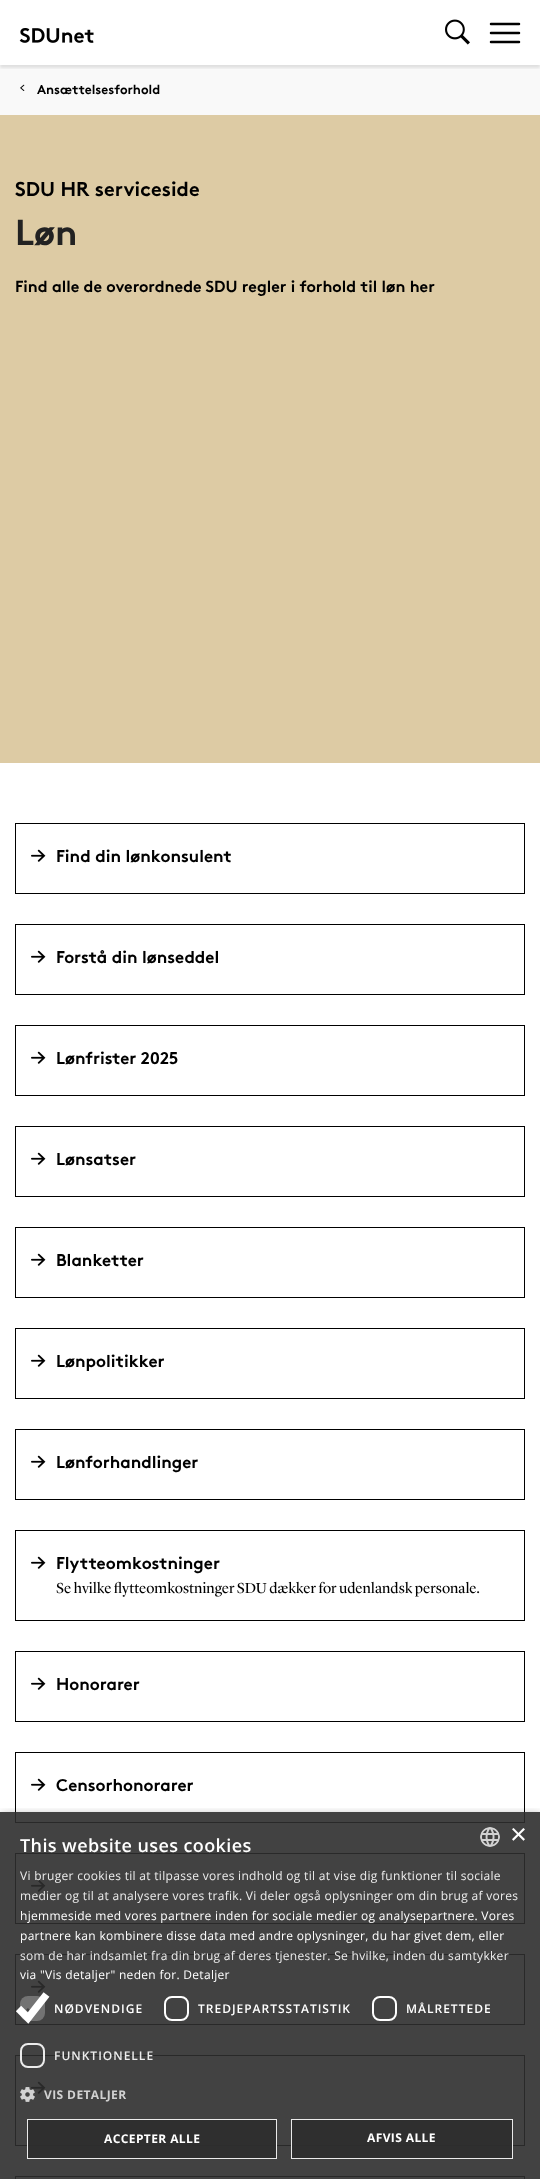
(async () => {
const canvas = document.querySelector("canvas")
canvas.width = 540
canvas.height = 2179
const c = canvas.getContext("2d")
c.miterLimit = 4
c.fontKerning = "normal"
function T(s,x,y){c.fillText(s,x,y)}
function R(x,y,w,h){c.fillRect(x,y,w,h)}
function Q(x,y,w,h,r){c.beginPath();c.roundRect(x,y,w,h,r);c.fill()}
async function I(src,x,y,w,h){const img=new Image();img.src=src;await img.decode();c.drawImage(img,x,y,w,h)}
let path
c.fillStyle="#fff"
R(0,0,540,2179)
c.fillStyle="#f9f9f9"
R(0,65,540,50)
c.save()
c.beginPath()
c.rect(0,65,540,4)
c.clip()
c.fillStyle="#0000001a"
c.filter="blur(1.5px)"
c.beginPath()
c.rect(0,3,540,65)
c.fill()
c.filter="none"
c.restore()
await I("1.png",19,28,75,15)
await I("2.png",445,19,25,26)
path = new Path2D("M491 24h28m-28 9h28m-28 9h28")
c.strokeStyle="#000"
c.lineWidth=2.5
c.lineCap="round"
c.lineJoin="round"
c.stroke(path)
await I("3.png",20,84,5,7)
c.font="bold 13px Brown"
c.fillStyle="#000"
T("Ansættelsesforhold",37,94)
c.fillStyle="#ddcba4"
R(0,115,540,648)
c.font="bold 20px Brown"
c.fillStyle="#000"
T("SDU HR serviceside",15,196)
c.font="bold 36px Brown"
c.fillStyle="#222"
T("Løn",15,245)
c.font="bold 16px Brown"
c.fillStyle="#000"
T("Find alle de overordnede SDU regler i forhold til løn her",15,292)
c.lineWidth=1
c.lineJoin="miter"
c.strokeRect(15.5,823.5,509,70)
await I("4.png",31,849,15,13)
c.font="bold 17px Brown"
T("Find din lønkonsulent",56,862)
c.strokeRect(15.5,924.5,509,70)
await I("4.png",31,950,15,13)
T("Forstå din lønseddel",56,963)
c.strokeRect(15.5,1025.5,509,70)
await I("4.png",31,1051,15,13)
T("Lønfrister 2025",56,1064)
c.strokeRect(15.5,1126.5,509,70)
await I("4.png",31,1152,15,13)
T("Lønsatser",56,1165)
c.strokeRect(15.5,1227.5,509,70)
await I("4.png",31,1253,15,13)
T("Blanketter",56,1266)
c.strokeRect(15.5,1328.5,509,70)
await I("4.png",31,1354,15,13)
T("Lønpolitikker",56,1367)
c.strokeRect(15.5,1429.5,509,70)
await I("4.png",31,1455,15,13)
T("Lønforhandlinger",56,1468)
c.strokeRect(15.5,1530.5,509,90)
await I("4.png",31,1556,15,13)
T("Flytteomkostninger",56,1569)
c.font="15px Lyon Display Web"
T("Se hvilke flytteomkostninger SDU dækker for udenlandsk personale.",56,1593)
c.strokeRect(15.5,1651.5,509,70)
await I("4.png",31,1677,15,13)
c.font="bold 17px Brown"
T("Honorarer",56,1690)
c.strokeRect(15.5,1752.5,509,70)
await I("4.png",31,1778,15,13)
T("Censorhonorarer",56,1791)
c.strokeRect(15.5,1853.5,509,70)
await I("4.png",31,1879,15,13)
c.strokeRect(15.5,1954.5,509,70)
await I("4.png",31,1980,15,13)
c.strokeRect(15.5,2055.5,509,90)
await I("4.png",31,2081,15,13)
c.strokeRect(15.5,2176.5,509,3)
c.save()
c.beginPath()
c.rect(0,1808,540,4)
c.clip()
c.fillStyle="#00000052"
c.filter="blur(4px)"
c.beginPath()
c.rect(1,1814,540,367)
c.fill()
c.filter="none"
c.restore()
c.fillStyle="#2d2d2de6"
R(0,1812,540,367)
await I("5.png",480,1827,20,20)
c.font="29px Liberation Sans"
c.fillStyle="#fff"
T("×",510,1844)
c.letterSpacing="0.4px"
c.font="600 18px Open Sans"
T("This website uses cookies",20,1852)
c.letterSpacing="0.3px"
c.font="12px Open Sans"
c.fillStyle="#ececec"
T("Vi bruger cookies til at tilpasse vores indhold og til at vise dig funktioner til sociale",20,1880)
T("medier og til at analysere vores trafik. Vi deler også oplysninger om din brug af vores",20,1900)
c.fillStyle="#fff"
T("hjemmeside med vores partnere inden for sociale medier og analysepartnere. Vores",20,1920)
T("partnere kan kombinere disse data med andre oplysninger, du har givet dem, eller",20,1940)
c.fillStyle="#ececec"
T("som de har indsamlet fra din brug af deres tjenester. Se hvilke, inden du samtykker",20,1960)
c.fillStyle="#fff"
T("via \"Vis detaljer\" neden for. Detaljer",20,1979)
c.fillStyle="#737373"
Q(20,1996,25,25,8)
path = new Path2D("M27 2009l3.5 3.5l7.5-8")
c.strokeStyle="#424242"
c.lineWidth=2.6
c.lineCap="butt"
c.stroke(path)
path = new Path2D("M18.5 2008.5l9.5 9.5l18.5-23.5")
c.strokeStyle="#fff"
c.lineWidth=7.5
c.stroke(path)
c.letterSpacing="1px"
c.font="600 12px Open Sans"
c.fillStyle="#fff"
T("NØDVENDIGE",54,2013)
c.beginPath()
c.roundRect(165,1997,23,23,7)
c.lineWidth=2
c.stroke()
T("TREDJEPARTSSTATISTIK",198,2013)
c.beginPath()
c.roundRect(373,1997,23,23,7)
c.stroke()
T("MÅLRETTEDE",406,2013)
c.beginPath()
c.roundRect(21,2044,23,23,7)
c.strokeStyle="#ffffffe6"
c.stroke()
c.fillStyle="#ececec"
T("FUNKTIONELLE",54,2060)
await I("6.png",20,2087,15,15)
c.letterSpacing="0.4px"
c.font="bold 12px Open Sans"
c.fillStyle="#d2d2d2"
T("VIS DETALJER",44,2099)
c.fillStyle="#2d2d2de6"
R(27,2119,250,40)
c.lineWidth=1
c.strokeRect(27.5,2119.5,249,39)
c.fillStyle="#fff"
T("ACCEPTER ALLE",104,2143)
c.fillStyle="#2d2d2de6"
R(291,2119,222,40)
c.strokeRect(291.5,2119.5,221,39)
c.fillStyle="#fff"
T("AFVIS ALLE",367,2142)
})()
